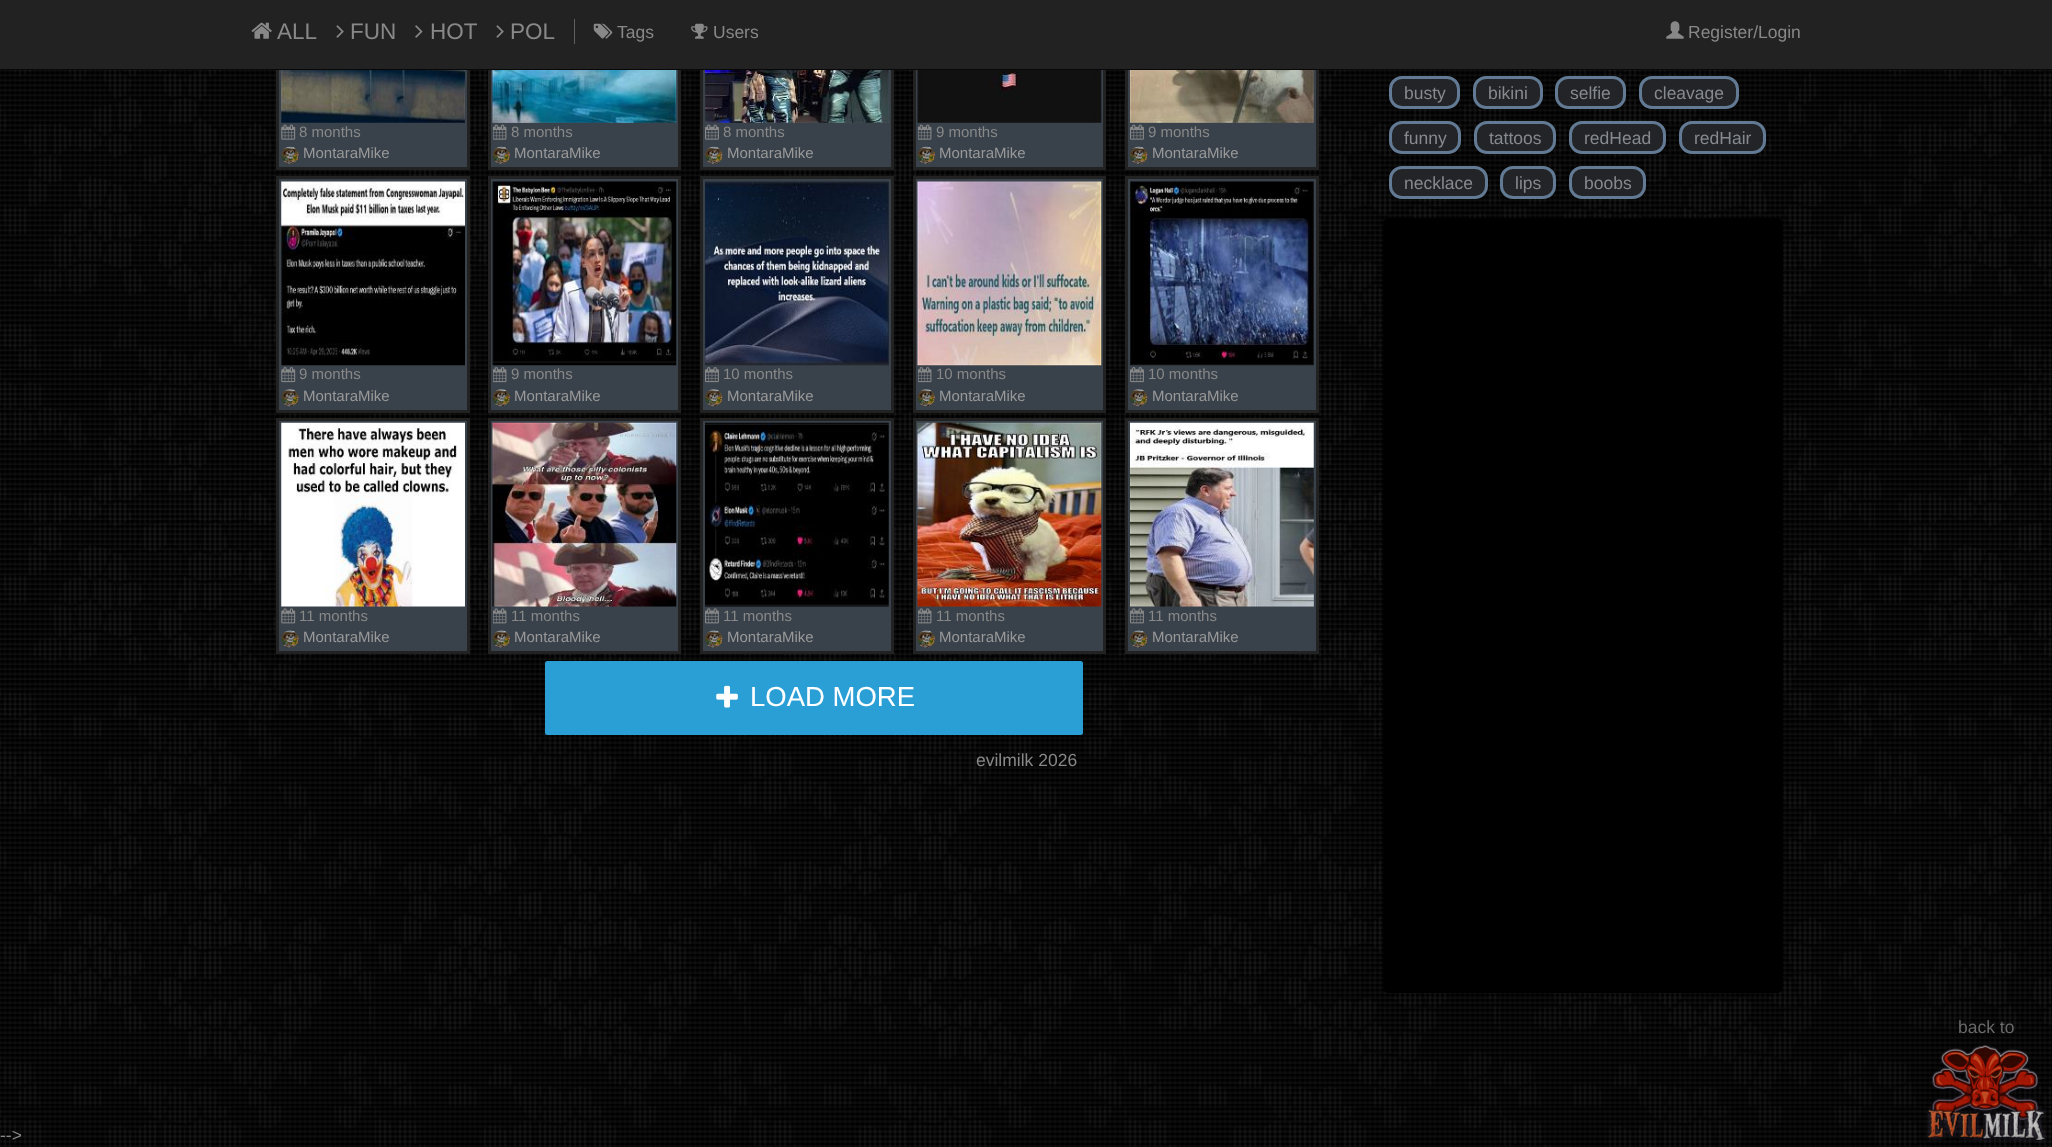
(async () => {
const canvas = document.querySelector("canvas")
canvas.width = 2052
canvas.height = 1147
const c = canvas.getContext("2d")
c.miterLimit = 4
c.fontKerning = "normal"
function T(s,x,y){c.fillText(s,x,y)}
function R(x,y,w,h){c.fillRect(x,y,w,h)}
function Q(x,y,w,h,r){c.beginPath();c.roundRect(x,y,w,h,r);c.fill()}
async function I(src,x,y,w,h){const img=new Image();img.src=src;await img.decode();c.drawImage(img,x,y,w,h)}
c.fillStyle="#000"
R(0,0,2052,1147)
await I("1.png",0,70,2052,1077)
c.fillStyle="#39414a"
R(279,70,188,97)
c.strokeStyle="#232222"
c.lineWidth=3
c.strokeRect(277.5,-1.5,191,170)
R(491,70,187,97)
c.strokeRect(489.5,-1.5,190,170)
R(703,70,188,97)
c.strokeRect(701.5,-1.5,191,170)
R(916,70,187,97)
c.strokeRect(914.5,-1.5,190,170)
R(1128,70,188,97)
c.strokeRect(1126.5,-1.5,191,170)
c.fillStyle="#222"
R(0,0,2052,69)
c.fillStyle="#080808"
R(0,69,2052,1)
await I("2.png",251,22,21,17)
c.font="22.5px Liberation Sans"
c.fillStyle="#888"
T("ALL",277,39)
await I("3.png",336,25,8,13)
T("FUN",350,39)
await I("4.png",415,25,8,13)
T("HOT",430,39)
await I("3.png",496,25,8,13)
T("POL",510,39)
c.fillStyle="#615e5e"
R(574,19,1,25)
await I("5.png",593,23,20,16)
c.font="17.5px Liberation Sans"
c.fillStyle="#888"
T("Tags",617,38)
await I("6.png",691,23,17,16)
T("Users",713,38)
await I("7.png",1666,21,18,18)
T("Register/Login",1688,38)
await I("8.png",281,70,184,53)
await I("9.png",281,124,15,16)
c.font="15px Liberation Sans"
T("8 months",299,137)
await I("10.png",281,146,18,18)
c.fillStyle="#999"
T("MontaraMike",303,158)
await I("11.png",492,70,185,53)
await I("12.png",493,124,14,16)
c.fillStyle="#888"
T("8 months",511,137)
await I("13.png",492,146,18,18)
c.fillStyle="#999"
T("MontaraMike",514,158)
await I("14.png",705,70,184,53)
await I("15.png",705,124,14,16)
c.fillStyle="#888"
T("8 months",723,137)
await I("16.png",705,146,18,18)
c.fillStyle="#999"
T("MontaraMike",727,158)
await I("17.png",917,70,185,53)
await I("12.png",918,124,14,16)
c.fillStyle="#888"
T("9 months",936,137)
await I("18.png",917,146,18,18)
c.fillStyle="#999"
T("MontaraMike",939,158)
await I("19.png",1130,70,184,53)
await I("15.png",1130,124,14,16)
c.fillStyle="#888"
T("9 months",1148,137)
await I("20.png",1130,146,18,18)
c.fillStyle="#999"
T("MontaraMike",1152,158)
c.fillStyle="#39414a"
c.beginPath()
c.rect(277.5,177.5,191,234)
c.fill()
c.stroke()
await I("21.png",281,181,184,185)
await I("22.png",281,367,15,16)
c.fillStyle="#888"
T("9 months",299,379)
await I("23.png",281,389,18,18)
c.fillStyle="#999"
T("MontaraMike",303,401)
c.fillStyle="#39414a"
c.beginPath()
c.rect(489.5,177.5,190,234)
c.fill()
c.stroke()
await I("24.png",492,181,185,185)
await I("25.png",493,367,14,16)
c.fillStyle="#888"
T("9 months",511,379)
await I("26.png",492,389,18,18)
c.fillStyle="#999"
T("MontaraMike",514,401)
c.fillStyle="#39414a"
c.beginPath()
c.rect(701.5,177.5,191,234)
c.fill()
c.stroke()
await I("27.png",705,181,184,185)
await I("28.png",705,367,14,16)
c.fillStyle="#888"
T("10 months",723,379)
await I("29.png",705,389,18,18)
c.fillStyle="#999"
T("MontaraMike",727,401)
c.fillStyle="#39414a"
c.beginPath()
c.rect(914.5,177.5,190,234)
c.fill()
c.stroke()
await I("30.png",917,181,185,185)
await I("25.png",918,367,14,16)
c.fillStyle="#888"
T("10 months",936,379)
await I("31.png",917,389,18,18)
c.fillStyle="#999"
T("MontaraMike",939,401)
c.fillStyle="#39414a"
c.beginPath()
c.rect(1126.5,177.5,191,234)
c.fill()
c.stroke()
await I("32.png",1130,181,184,185)
await I("28.png",1130,367,14,16)
c.fillStyle="#888"
T("10 months",1148,379)
await I("33.png",1130,389,18,18)
c.fillStyle="#999"
T("MontaraMike",1152,401)
c.fillStyle="#39414a"
c.beginPath()
c.rect(277.5,419.5,191,233)
c.fill()
c.stroke()
await I("34.png",281,422,184,185)
await I("35.png",281,608,15,16)
c.fillStyle="#888"
T("11 months",299,621)
await I("36.png",281,630,18,18)
c.fillStyle="#999"
T("MontaraMike",303,642)
c.fillStyle="#39414a"
c.beginPath()
c.rect(489.5,419.5,190,233)
c.fill()
c.stroke()
await I("37.png",492,422,185,185)
await I("38.png",493,608,14,16)
c.fillStyle="#888"
T("11 months",511,621)
await I("39.png",492,630,18,18)
c.fillStyle="#999"
T("MontaraMike",514,642)
c.fillStyle="#39414a"
c.beginPath()
c.rect(701.5,419.5,191,233)
c.fill()
c.stroke()
await I("40.png",705,422,184,185)
await I("41.png",705,608,14,16)
c.fillStyle="#888"
T("11 months",723,621)
await I("42.png",705,630,18,18)
c.fillStyle="#999"
T("MontaraMike",727,642)
c.fillStyle="#39414a"
c.beginPath()
c.rect(914.5,419.5,190,233)
c.fill()
c.stroke()
await I("43.png",917,422,185,185)
await I("38.png",918,608,14,16)
c.fillStyle="#888"
T("11 months",936,621)
await I("44.png",917,630,18,18)
c.fillStyle="#999"
T("MontaraMike",939,642)
c.fillStyle="#39414a"
c.beginPath()
c.rect(1126.5,419.5,191,233)
c.fill()
c.stroke()
await I("45.png",1130,422,184,185)
await I("41.png",1130,608,14,16)
c.fillStyle="#888"
T("11 months",1148,621)
await I("46.png",1130,630,18,18)
c.fillStyle="#999"
T("MontaraMike",1152,642)
c.fillStyle="#2a9fd6"
Q(545,661,538,74,2.5)
await I("47.png",716,685,22,23)
c.font="27.5px Liberation Sans"
c.fillStyle="#fff"
T("LOAD MORE",750,706)
c.fillStyle="#222427"
c.beginPath()
c.roundRect(1390.5,77.5,68,30,11.5)
c.fill()
c.strokeStyle="#637a94"
c.stroke()
c.font="17.5px Liberation Sans"
c.fillStyle="#868a8e"
T("busty",1404,99)
c.fillStyle="#222427"
c.beginPath()
c.roundRect(1474.5,77.5,67,30,11.5)
c.fill()
c.stroke()
c.fillStyle="#868a8e"
T("bikini",1488,99)
c.fillStyle="#222427"
c.beginPath()
c.roundRect(1556.5,77.5,68,30,11.5)
c.fill()
c.stroke()
c.fillStyle="#868a8e"
T("selfie",1570,99)
c.fillStyle="#222427"
c.beginPath()
c.roundRect(1640.5,77.5,97,30,11.5)
c.fill()
c.stroke()
c.fillStyle="#868a8e"
T("cleavage",1654,99)
c.fillStyle="#222427"
c.beginPath()
c.roundRect(1390.5,122.5,69,30,11.5)
c.fill()
c.stroke()
c.fillStyle="#868a8e"
T("funny",1404,144)
c.fillStyle="#222427"
c.beginPath()
c.roundRect(1475.5,122.5,79,30,11.5)
c.fill()
c.stroke()
c.fillStyle="#868a8e"
T("tattoos",1489,144)
c.fillStyle="#222427"
c.beginPath()
c.roundRect(1570.5,122.5,94,30,11.5)
c.fill()
c.stroke()
c.fillStyle="#868a8e"
T("redHead",1584,144)
c.fillStyle="#222427"
c.beginPath()
c.roundRect(1680.5,122.5,84,30,11.5)
c.fill()
c.stroke()
c.fillStyle="#868a8e"
T("redHair",1694,144)
c.fillStyle="#222427"
c.beginPath()
c.roundRect(1390.5,167.5,96,30,11.5)
c.fill()
c.stroke()
c.fillStyle="#868a8e"
T("necklace",1404,189)
c.fillStyle="#222427"
c.beginPath()
c.roundRect(1501.5,167.5,53,30,11.5)
c.fill()
c.stroke()
c.fillStyle="#868a8e"
T("lips",1515,189)
c.fillStyle="#222427"
c.beginPath()
c.roundRect(1570.5,167.5,74,30,11.5)
c.fill()
c.stroke()
c.fillStyle="#868a8e"
T("boobs",1584,189)
c.fillStyle="#000"
Q(1383,218,400,775,6)
c.fillStyle="#888"
T("evilmilk 2026",976,766)
c.fillStyle="#686868"
T("back to",1958,1033)
await I("48.png",1926,1045,121,99)
c.fillStyle="#888"
T("-->",0,1141)
})()
